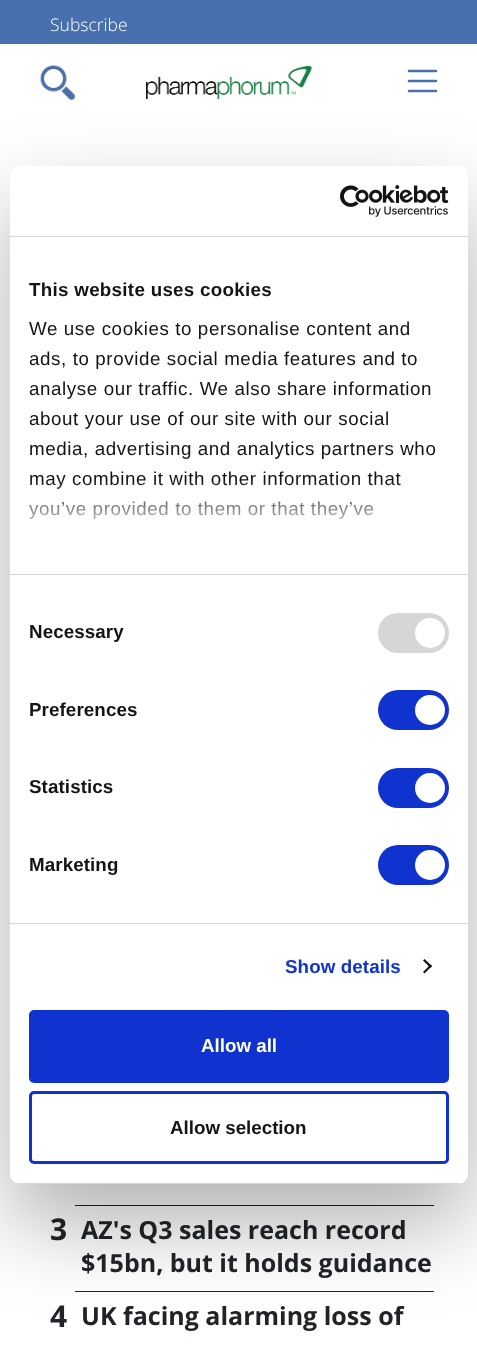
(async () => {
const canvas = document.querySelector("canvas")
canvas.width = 477
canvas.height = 1349
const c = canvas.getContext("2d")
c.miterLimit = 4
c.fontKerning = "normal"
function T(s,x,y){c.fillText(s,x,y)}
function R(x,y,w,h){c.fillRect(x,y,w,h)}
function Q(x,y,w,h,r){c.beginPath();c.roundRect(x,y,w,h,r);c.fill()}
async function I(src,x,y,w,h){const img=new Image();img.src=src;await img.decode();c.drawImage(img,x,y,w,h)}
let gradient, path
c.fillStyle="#fff"
R(0,0,477,1349)
c.fillStyle="#486fae"
R(0,0,477,44)
c.font="300 17.5px Open Sans"
c.fillStyle="#fff"
T("Subscribe",50,31)
await I("1.png",40,65,36,36)
await I("2.png",146,66,166,33)
path = new Path2D("M409 71h27m-27 10h27m-27 10h27")
c.strokeStyle="#486fae"
c.lineWidth=2.5
c.lineCap="round"
c.stroke(path)
c.fillStyle="#212529"
R(75,1205,359,1)
c.font="bold 30px Open Sans"
T("3",50,1240)
R(75,1291,359,1)
c.font="bold 25px Open Sans"
T("AZ's Q3 sales reach record",81,1239)
T("$15bn, but it holds guidance",81,1272)
c.font="bold 30px Open Sans"
T("4",50,1327)
c.font="bold 25px Open Sans"
T("UK facing alarming loss of",81,1325)
c.fillStyle="#0000004d"
c.filter="blur(42.5px)"
c.beginPath()
c.roundRect(10,206,458,1018,10)
c.fill()
c.filter="none"
c.fillStyle="#fff"
Q(10,166,458,1018,10)
c.fillStyle="#d6d6d6"
R(10,236,458,1)
await I("3.png",340,185,109,32)
R(10,574,458,1)
c.letterSpacing="0.3px"
c.font="bold 18.75px Liberation Sans"
c.fillStyle="#141414"
T("This website uses cookies",29,296)
c.letterSpacing="0.6px"
c.font="18.75px Liberation Sans"
T("We use cookies to personalise content and",29,335)
T("ads, to provide social media features and to",29,365)
T("analyse our traffic. We also share information",29,395)
T("about your use of our site with our social",29,425)
T("media, advertising and analytics partners who",29,455)
T("may combine it with other information that",29,485)
T("you’ve provided to them or that they’ve",29,515)
gradient = c.createLinearGradient(231,574,231,480)
gradient.addColorStop(0,"#fff")
gradient.addColorStop(.5,"#ffffffcc")
gradient.addColorStop(1,"#ffffff00")
c.fillStyle = gradient
R(28,481,374,38)
c.fillStyle="#d6d6d6"
R(10,923,458,1)
c.letterSpacing="0.1px"
c.font="bold 18.75px Liberation Sans"
c.fillStyle="#141414"
T("Necessary",29,638)
c.fillStyle="#d6d6d6"
Q(378,613,71,40,20)
c.fillStyle="#fff"
c.beginPath()
c.arc(430,633,15,0,7)
c.fill()
c.fillStyle="#141414"
T("Preferences",29,716)
c.fillStyle="#1032cf"
Q(378,690,71,40,20)
c.fillStyle="#fff"
c.beginPath()
c.arc(430,710,15,0,7)
c.fill()
c.fillStyle="#141414"
T("Statistics",29,793)
c.fillStyle="#1032cf"
Q(378,768,71,40,20)
c.fillStyle="#fff"
c.beginPath()
c.arc(430,788,15,0,7)
c.fill()
c.fillStyle="#141414"
T("Marketing",29,871)
c.fillStyle="#1032cf"
Q(378,845,71,40,20)
c.fillStyle="#fff"
c.beginPath()
c.arc(430,865,15,0,7)
c.fill()
c.fillStyle="#1032cf"
T("Show details",285,973)
c.fillStyle="#141414"
path = new Path2D("M424.5 959l7.5 7l-1.5 2l-7.5-7.5z")
c.fill(path)
path = new Path2D("M430.5 964.5l1.5 1.5l-7.5 7.5l-1.5-1.5z")
c.fill(path)
c.save()
c.beginPath()
c.roundRect(10,166,458,1018,10)
c.clip()
c.fillStyle="#d6d6d6"
R(10,1183,458,1)
c.restore()
c.fillStyle="#1032cf"
c.beginPath()
c.roundRect(30.5,1011.5,417,70,3.5)
c.fill()
c.strokeStyle="#1032cf"
c.lineWidth=3
c.stroke()
c.letterSpacing="0px"
c.fillStyle="#fff"
T("Allow all",201,1052)
c.beginPath()
c.roundRect(30.5,1092.5,417,70,3.5)
c.stroke()
c.fillStyle="#141414"
T("Allow selection",170,1134)
})()
